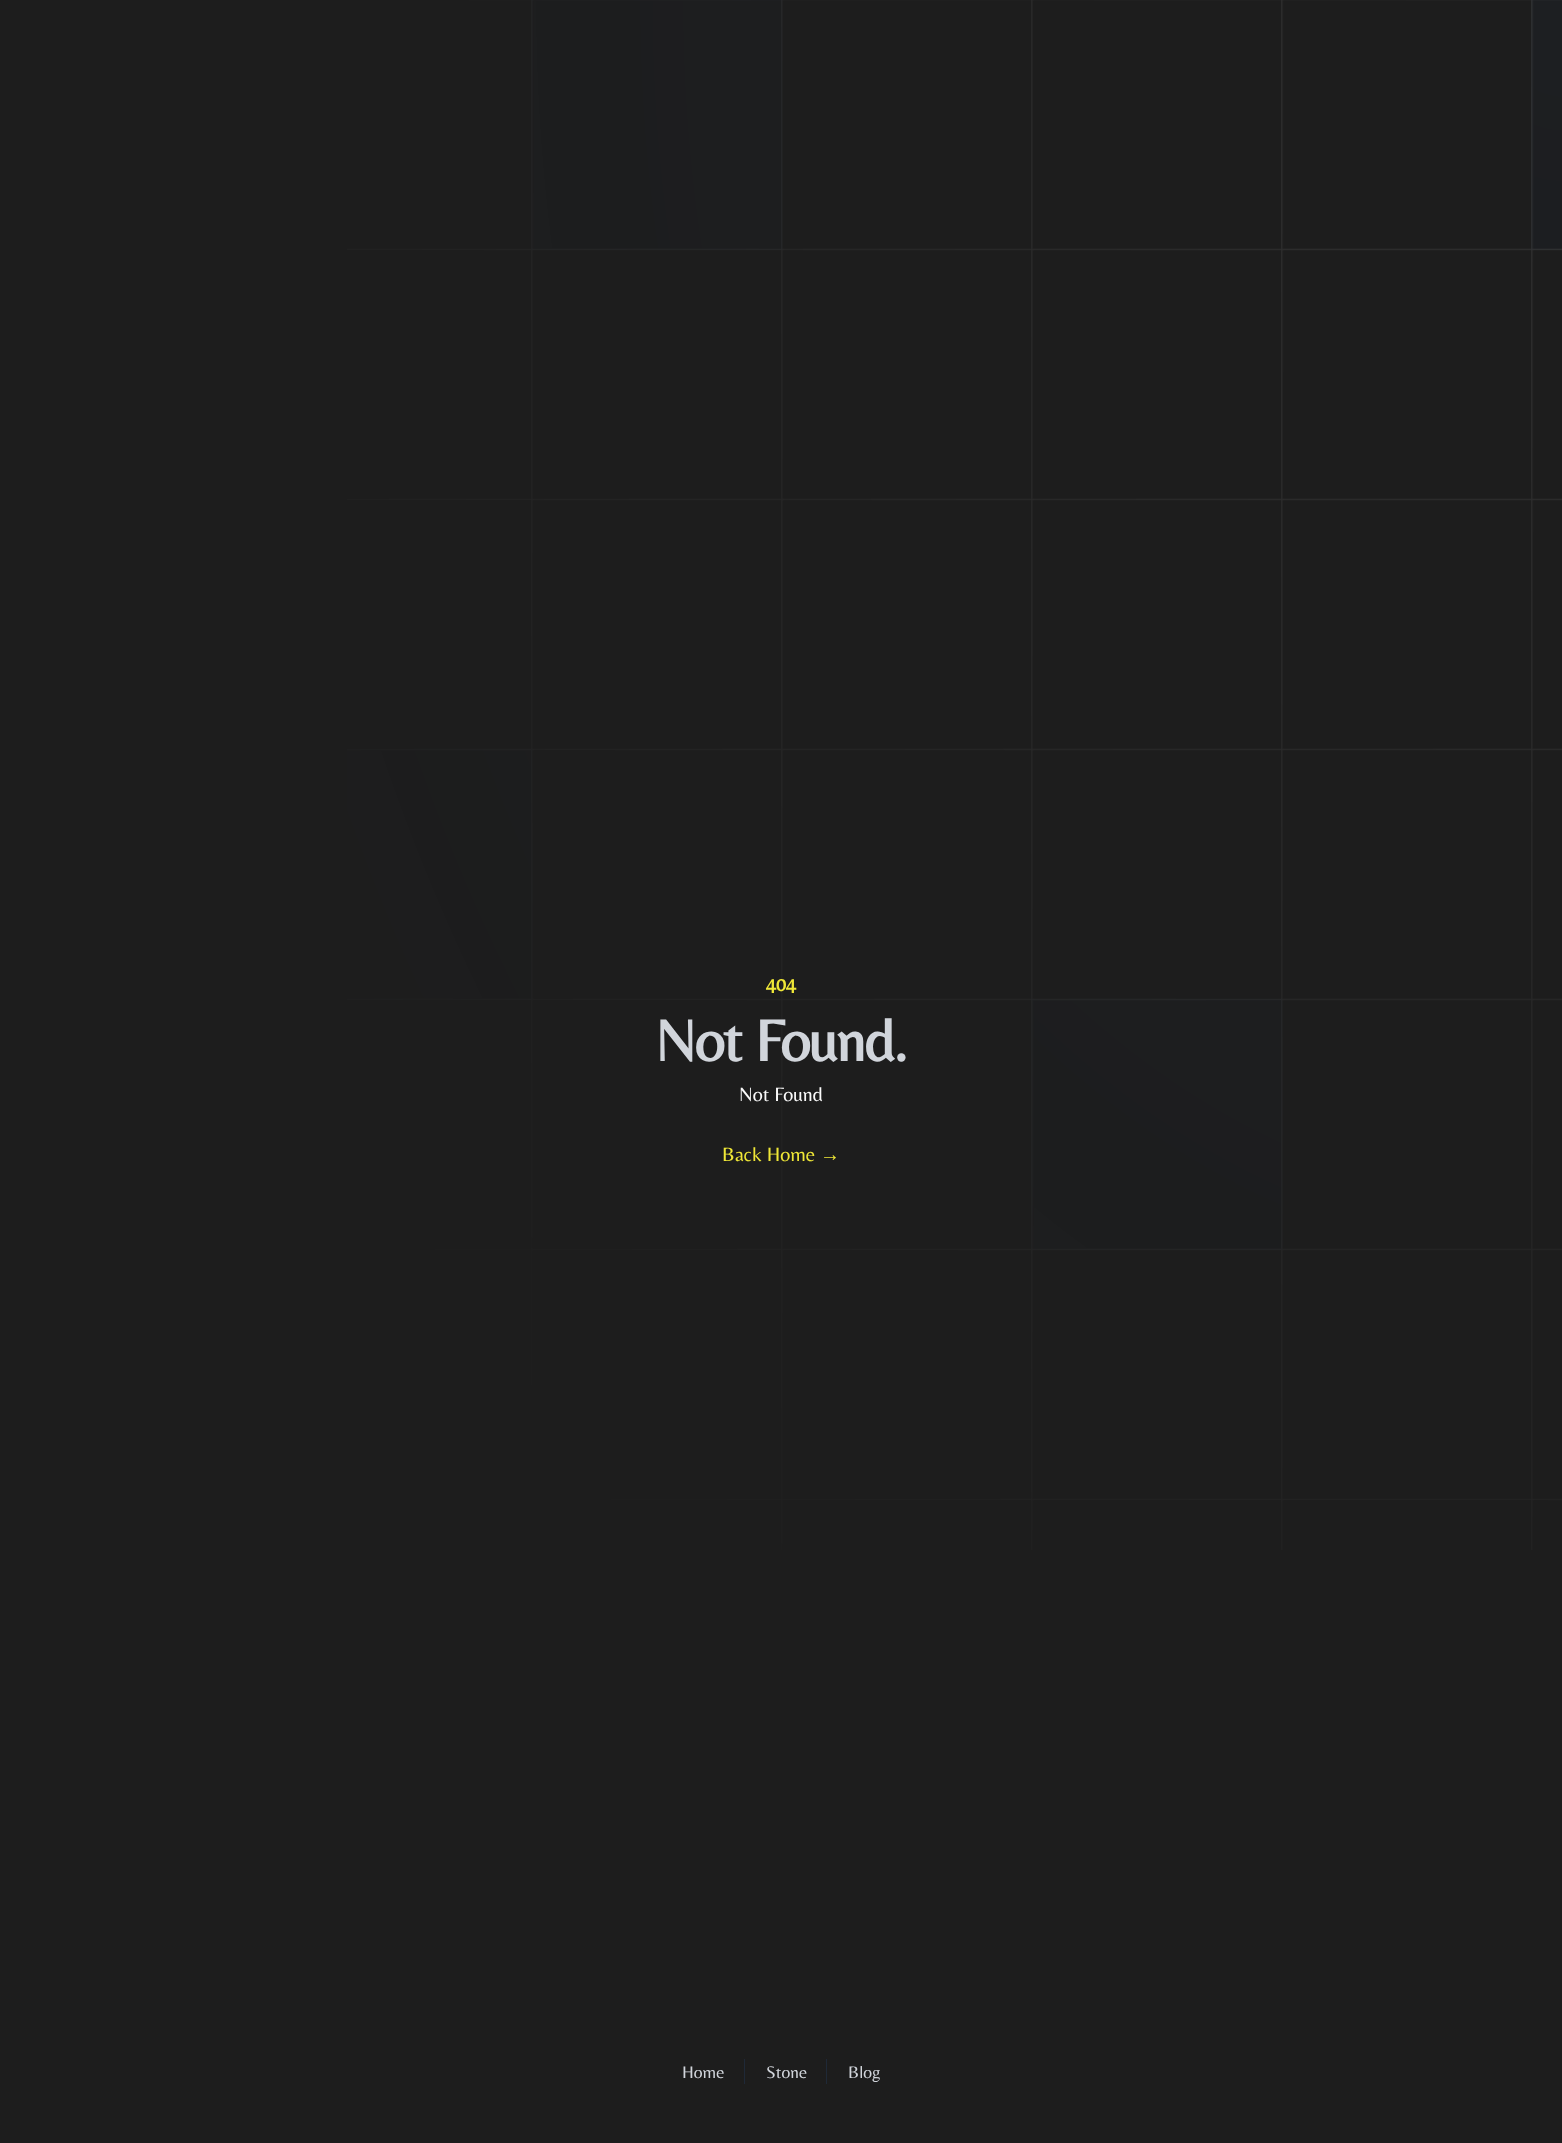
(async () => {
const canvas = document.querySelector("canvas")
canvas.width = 1562
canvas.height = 2143
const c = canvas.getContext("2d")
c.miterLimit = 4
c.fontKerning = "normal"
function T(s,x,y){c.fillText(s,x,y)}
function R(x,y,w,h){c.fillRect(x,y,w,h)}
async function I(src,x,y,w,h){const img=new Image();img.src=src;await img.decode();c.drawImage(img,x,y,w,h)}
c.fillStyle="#1d1d1d"
R(0,0,1562,2143)
await I("1.png",347,0,1215,1550)
c.font="bold 20px Belleza"
c.fillStyle="#efe737"
T("404",766,991)
c.letterSpacing="-1.5px"
c.font="bold 60px Belleza"
c.fillStyle="#d1d5db"
T("Not Found.",655,1061)
c.letterSpacing="0px"
c.font="20px Belleza"
c.fillStyle="#fafafa"
T("Not Found",739,1101)
c.fillStyle="#efe737"
T("Back Home",722,1161)
c.font="20px Liberation Sans"
T("→",820,1161)
c.font="17.5px Belleza"
c.fillStyle="#d1d5db"
T("Home",682,2078)
c.fillStyle="#1f2937"
R(744,2059,1,25)
c.fillStyle="#d1d5db"
T("Stone",766,2078)
c.fillStyle="#1f2937"
R(826,2059,1,25)
c.fillStyle="#d1d5db"
T("Blog",848,2078)
})()
